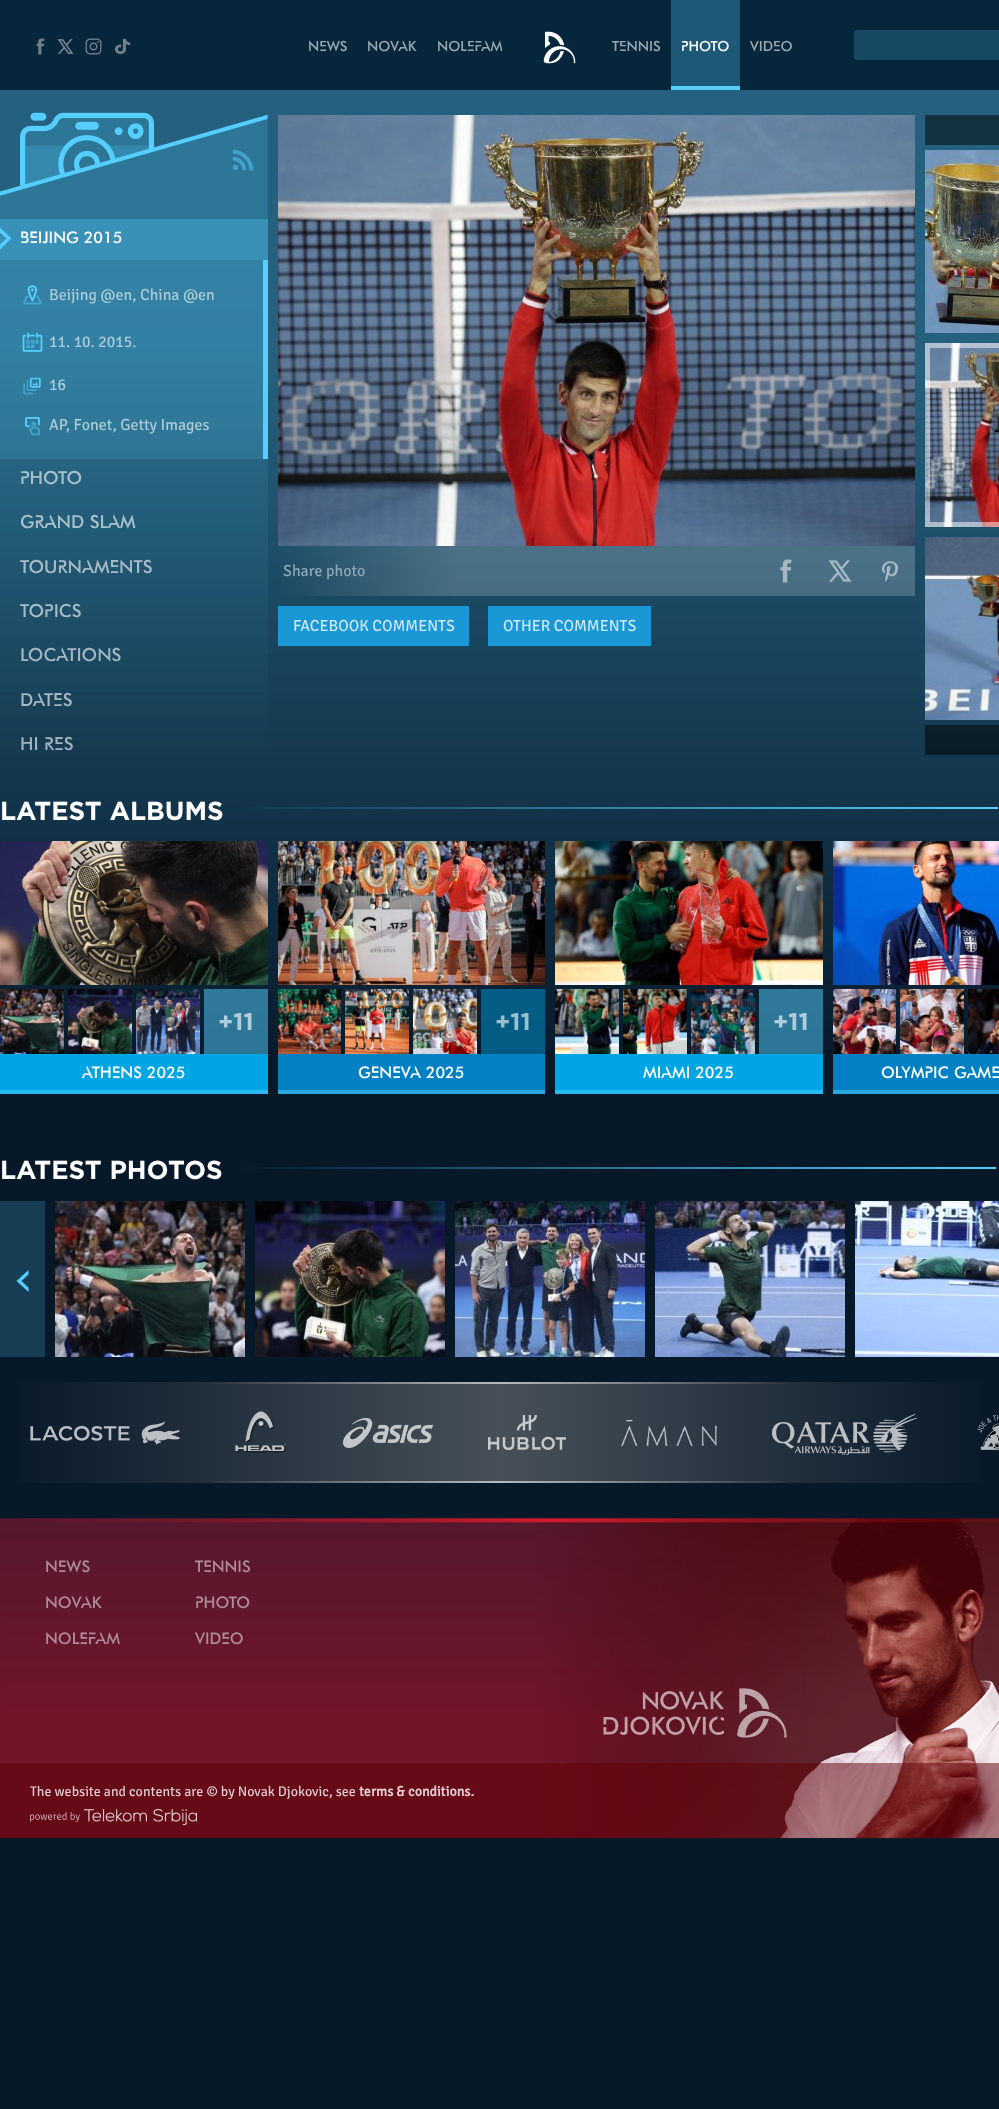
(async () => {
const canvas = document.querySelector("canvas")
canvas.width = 999
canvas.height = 2109
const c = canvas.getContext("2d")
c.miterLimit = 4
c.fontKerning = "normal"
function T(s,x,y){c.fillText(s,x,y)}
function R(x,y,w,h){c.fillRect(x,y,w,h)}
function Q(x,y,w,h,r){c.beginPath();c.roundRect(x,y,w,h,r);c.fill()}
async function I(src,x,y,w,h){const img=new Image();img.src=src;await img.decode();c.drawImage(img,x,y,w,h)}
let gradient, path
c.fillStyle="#071829"
R(0,0,999,2109)
c.fillStyle="#06263c"
R(0,0,999,90)
await I("1.png",36,38,9,17)
await I("2.png",57,39,17,15)
await I("3.png",85,38,17,17)
await I("4.png",114,38,17,17)
c.font="500 14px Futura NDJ"
c.fillStyle="#9ba8b1"
T("NEWS",308,51)
T("NOVAK",367,51)
T("NOLEFAM",437,51)
await I("5.png",543,31,33,33)
T("TENNIS",612,51)
c.fillStyle="#1d5977"
R(671,0,69,86)
c.fillStyle="#54cfff"
R(671,86,69,4)
c.fillStyle="#fff"
T("PHOTO",681,51)
c.fillStyle="#9ba8b1"
T("VIDEO",750,51)
c.fillStyle="#164863"
Q(854,30,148,30,3)
await I("6.png",0,90,999,960)
await I("7.png",0,112,268,107)
await I("8.png",232,149,22,22)
c.fillStyle="#3991b7"
R(0,219,268,41)
c.fillStyle="#54cfff"
path = new Path2D("M11.5 238.5l-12-11.5v5l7 6.5l-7 6.5v5z")
c.fill(path)
c.font="500 16px Futura NDJ"
c.fillStyle="#fff"
T("BEIJING 2015",20,243)
c.fillStyle="#3383a6"
R(0,260,263,10)
c.fillStyle="#54cfff"
R(263,260,5,199)
c.fillStyle="#54cfff26"
R(0,270,263,189)
await I("9.png",23,285,19,20)
c.font="16px Signika Negative"
c.fillStyle="#adcddb"
T("Beijing @en, China @en",49,300)
await I("10.png",22,332,21,20)
T("11. 10. 2015.",49,347)
await I("11.png",23,377,18,18)
T("16",49,390)
await I("12.png",25,417,15,19)
T("AP, Fonet, Getty Images",49,430)
c.font="500 18px Futura NDJ"
c.fillStyle="#a8c0cc"
T("PHOTO",20,484)
T("GRAND SLAM",20,528)
c.fillStyle="#a6bbc6"
T("TOURNAMENTS",20,573)
T("TOPICS",20,617)
c.fillStyle="#a4b6c0"
T("LOCATIONS",20,661)
T("DATES",20,706)
c.fillStyle="#a2b1ba"
T("HI RES",20,750)
await I("13.png",278,115,637,431)
c.font="16px Signika Negative"
c.fillStyle="#93aab6"
T("Share photo",283,576)
await I("14.png",780,559,12,24)
await I("15.png",828,560,24,22)
await I("16.png",882,561,17,21)
c.fillStyle="#1a98d6"
R(278,606,191,40)
c.fillStyle="#d1eaf7"
T("FACEBOOK COMMENTS",293,631)
c.fillStyle="#1a98d6"
R(488,606,163,40)
c.fillStyle="#d1eaf7"
T("OTHER COMMENTS",503,631)
c.fillStyle="#133140"
R(925,115,74,30)
await I("17.png",925,150,74,183)
await I("18.png",925,343,74,184)
c.strokeStyle="#ffffff80"
c.lineWidth=5
c.strokeRect(927.5,345.5,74,179)
await I("19.png",925,537,74,183)
c.fillStyle="#00000080"
R(925,725,74,30)
c.font="bold 26px Gotham"
c.fillStyle="#fff"
T("LATEST ALBUMS",0,820)
gradient = c.createLinearGradient(234,808,998,808)
gradient.addColorStop(0,"#12344a")
gradient.addColorStop(1,"#54cfff")
c.fillStyle = gradient
R(245,807,753,2)
await I("20.png",0,841,268,144)
await I("21.png",0,989,64,65)
await I("22.png",68,989,64,65)
await I("23.png",136,989,64,65)
c.fillStyle="#54cfff80"
R(204,989,64,65)
c.font="bold 24px Gotham"
c.fillStyle="#adcddb"
T("+11",218,1030)
c.fillStyle="#00a5e4"
R(0,1054,268,36)
c.font="500 16px Futura NDJ"
c.fillStyle="#fff"
T("ATHENS 2025",82,1078)
c.fillStyle="#2abaf2"
R(0,1090,268,4)
await I("24.png",278,841,267,144)
await I("25.png",278,989,63,65)
await I("26.png",345,989,64,65)
await I("27.png",413,989,64,65)
c.fillStyle="#0099d980"
R(481,989,64,65)
c.font="bold 24px Gotham"
c.fillStyle="#9bbece"
T("+11",495,1030)
c.fillStyle="#0180c4"
R(278,1054,267,36)
c.font="500 16px Futura NDJ"
c.fillStyle="#fff"
T("GENEVA 2025",358,1078)
c.fillStyle="#2ba8e2"
R(278,1090,267,4)
await I("28.png",555,841,268,144)
await I("29.png",555,989,64,65)
await I("30.png",623,989,64,65)
await I("31.png",691,989,64,65)
c.fillStyle="#54cfff80"
R(759,989,64,65)
c.font="bold 24px Gotham"
c.fillStyle="#adcddb"
T("+11",773,1030)
c.fillStyle="#00a5e4"
R(555,1054,268,36)
c.font="500 16px Futura NDJ"
c.fillStyle="#fff"
T("MIAMI 2025",643,1078)
c.fillStyle="#2abaf2"
R(555,1090,268,4)
await I("32.png",833,841,166,144)
await I("33.png",833,989,63,65)
await I("34.png",900,989,64,65)
await I("35.png",968,989,31,65)
c.fillStyle="#0180c4"
R(833,1054,166,36)
c.fillStyle="#fff"
T("OLYMPIC GAME",881,1078)
c.fillStyle="#2ba8e2"
R(833,1090,166,4)
c.font="bold 26px Gotham"
c.fillStyle="#fff"
T("LATEST PHOTOS",0,1179)
gradient = c.createLinearGradient(233,1168,996,1168)
gradient.addColorStop(0,"#071829")
gradient.addColorStop(1,"#54cfff")
c.fillStyle = gradient
R(242,1167,754,2)
c.fillStyle="#163d54"
R(0,1201,45,156)
c.fillStyle="#54cfff"
path = new Path2D("M16.5 1281l12-11v4.5l-7 6.5l7 6.5v4.5z")
c.fill(path)
await I("36.png",55,1201,190,156)
await I("37.png",255,1201,190,156)
await I("38.png",455,1201,190,156)
await I("39.png",655,1201,190,156)
await I("40.png",855,1201,144,156)
gradient = c.createLinearGradient(0,1433,999,1433)
gradient.addColorStop(0,"#071829")
gradient.addColorStop(.5,"#475058")
gradient.addColorStop(1,"#071829")
c.fillStyle = gradient
R(20,1382,960,101)
gradient = c.createLinearGradient(0,1383,999,1383)
gradient.addColorStop(.2,"#ffffff00")
gradient.addColorStop(.5,"#ffffff99")
gradient.addColorStop(.8,"#ffffff00")
c.fillStyle = gradient
R(211,1382,577,2)
await I("41.png",30,1421,150,24)
await I("42.png",235,1411,52,42)
await I("43.png",343,1418,90,30)
await I("44.png",488,1415,78,35)
await I("45.png",621,1420,96,26)
await I("46.png",772,1414,145,41)
await I("47.png",977,1415,22,35)
gradient = c.createLinearGradient(0,1482,999,1482)
gradient.addColorStop(.2,"#ffffff00")
gradient.addColorStop(.5,"#ffffff99")
gradient.addColorStop(.8,"#ffffff00")
c.fillStyle = gradient
R(211,1481,577,2)
await I("48.png",0,1518,999,320)
c.font="500 16px Futura NDJ"
c.fillStyle="#ae8b96"
T("NEWS",45,1572)
T("NOVAK",45,1608)
T("NOLEFAM",45,1644)
T("TENNIS",195,1572)
T("PHOTO",195,1608)
T("VIDEO",195,1644)
await I("49.png",603,1688,184,50)
c.fillStyle="#5e000580"
R(0,1763,999,75)
c.font="14px Signika Negative"
c.fillStyle="#e1ced1"
T("The website and contents are © by Novak Djokovic, see",30,1796)
c.font="bold 14px Signika Negative"
T("terms & conditions.",359,1796)
await I("50.png",30,1812,50,10)
await I("51.png",84,1809,113,16)
})()
